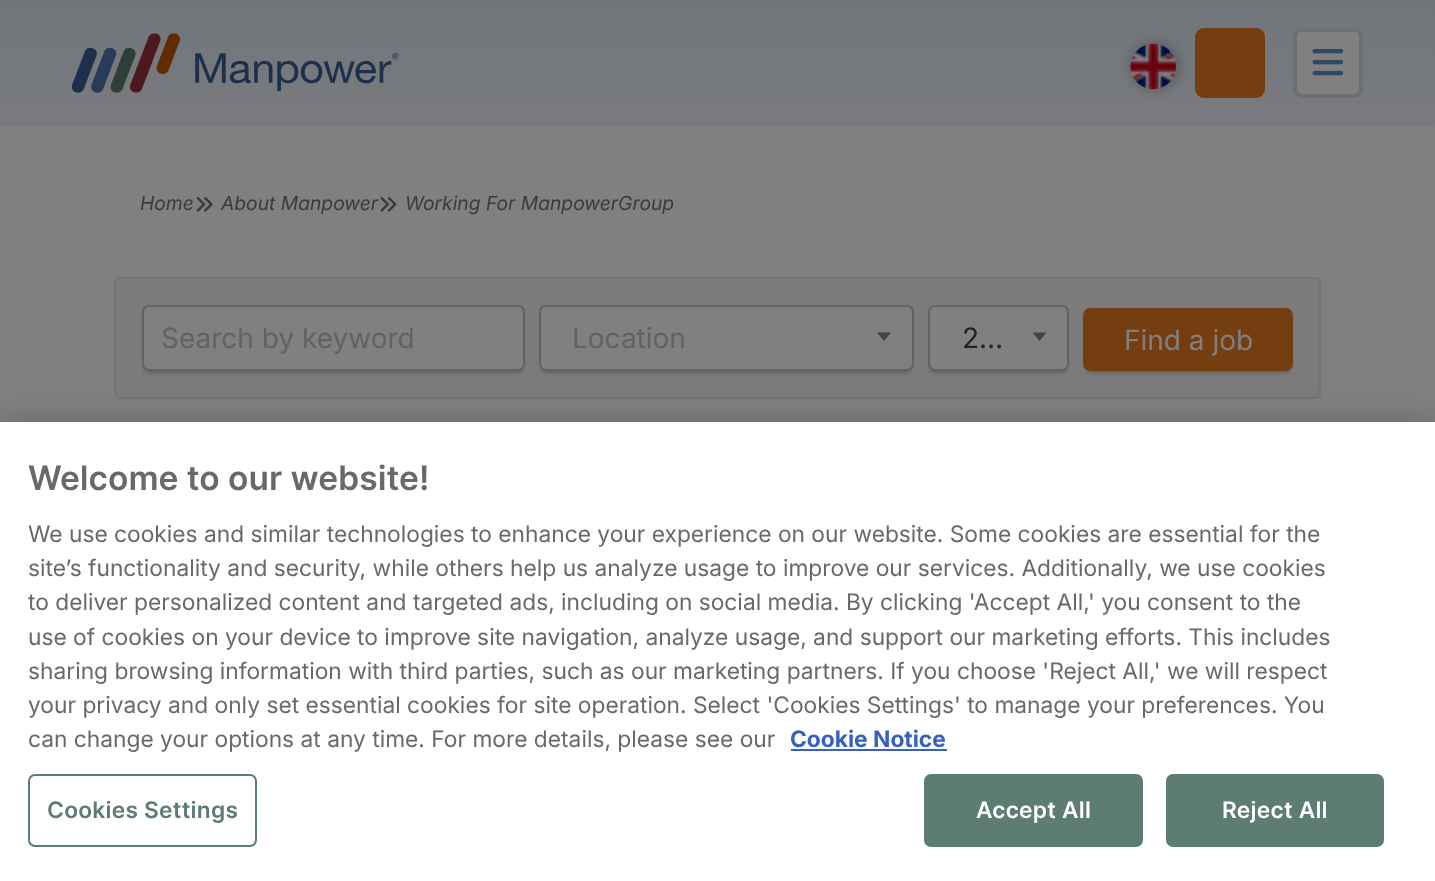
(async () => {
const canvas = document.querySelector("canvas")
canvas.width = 1435
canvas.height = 881
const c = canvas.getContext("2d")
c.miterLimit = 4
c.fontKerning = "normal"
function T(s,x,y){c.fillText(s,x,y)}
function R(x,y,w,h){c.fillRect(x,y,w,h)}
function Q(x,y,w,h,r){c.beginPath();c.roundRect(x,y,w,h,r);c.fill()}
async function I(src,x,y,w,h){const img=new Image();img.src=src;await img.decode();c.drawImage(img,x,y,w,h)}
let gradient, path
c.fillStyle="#fff"
R(0,0,1435,881)
gradient = c.createLinearGradient(717,0,718,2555)
gradient.addColorStop(0,"#71757a")
gradient.addColorStop(.09,"#808080")
c.fillStyle = gradient
R(0,0,1435,126)
await I("1.png",72,33,327,60)
c.fillStyle="#743e11"
Q(1195,28,70,70,9)
c.fillStyle="#0000004d"
c.filter="blur(7px)"
c.beginPath()
c.roundRect(1132,44,46,45,22.5)
c.fill()
c.filter="none"
await I("2.png",1130,43,46,47)
c.fillStyle="#808080"
c.beginPath()
c.roundRect(1295,30,66,66,7)
c.fill()
c.strokeStyle="#6d6f71"
c.lineWidth=4
c.stroke()
await I("3.png",1312,49,32,27)
R(0,126,1435,296)
c.font="italic 19.25px Inter"
c.fillStyle="#3a3b40"
T("Home",140,210)
await I("4.png",196,197,17,15)
T("About Manpower",221,210)
await I("5.png",380,197,17,15)
T("Working For ManpowerGroup",405,210)
c.fillStyle="#7b7b7c"
c.beginPath()
c.roundRect(115,278,1205,120,4)
c.fill()
c.strokeStyle="#747474"
c.lineWidth=2
c.stroke()
c.fillStyle="#5e5e5e"
c.filter="blur(2px)"
c.beginPath()
c.roundRect(145,313,377,60,4)
c.fill()
c.filter="none"
c.fillStyle="#808080"
c.beginPath()
c.roundRect(143,306,381,64,6)
c.fill()
c.strokeStyle="#626265"
c.stroke()
c.font="28px Inter"
c.fillStyle="#626265"
T("Search by keyword",161,348)
c.fillStyle="#5e5e5e"
c.filter="blur(2px)"
c.beginPath()
c.roundRect(543,313,367,60,4)
c.fill()
c.filter="none"
c.fillStyle="#808080"
c.beginPath()
c.roundRect(540,306,373,64,6)
c.fill()
c.stroke()
c.fillStyle="#626265"
T("Location",572,348)
c.fillStyle="#444"
path = new Path2D("M877 332.5h14l-7 8.5z")
c.fill(path)
c.fillStyle="#5e5e5e"
c.filter="blur(2px)"
c.beginPath()
c.roundRect(931,313,135,60,4)
c.fill()
c.filter="none"
c.fillStyle="#808080"
c.beginPath()
c.roundRect(929,306,139,64,6)
c.fill()
c.stroke()
c.fillStyle="#222"
T("2…",962,348)
c.fillStyle="#444"
path = new Path2D("M1032.5 332.5h14l-7 8.5z")
c.fill(path)
c.fillStyle="#5e5e5e"
c.filter="blur(2px)"
c.beginPath()
c.roundRect(1087,317,203,56,4)
c.fill()
c.filter="none"
c.fillStyle="#743e11"
c.beginPath()
c.roundRect(1084,309,208,61,6)
c.fill()
c.strokeStyle="#743e11"
c.stroke()
c.fillStyle="#808080"
T("Find a job",1124,350)
c.fillStyle="#00000033"
c.filter="blur(16px)"
c.beginPath()
c.rect(0,422,1435,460)
c.fill()
c.filter="none"
c.fillStyle="#fff"
R(0,422,1435,459)
c.font="600 33.6px Inter"
c.fillStyle="#696969"
T("Welcome to our website!",28,490)
c.font="22.75px Inter"
T("We use cookies and similar technologies to enhance your experience on our website. Some cookies are essential for the",28,542)
T("site’s functionality and security, while others help us analyze usage to improve our services. Additionally, we use cookies",28,576)
T("to deliver personalized content and targeted ads, including on social media. By clicking 'Accept All,' you consent to the",28,610)
T("use of cookies on your device to improve site navigation, analyze usage, and support our marketing efforts. This includes",28,645)
T("sharing browsing information with third parties, such as our marketing partners. If you choose 'Reject All,' we will respect",28,679)
T("your privacy and only set essential cookies for site operation. Select 'Cookies Settings' to manage your preferences. You",28,713)
T("can change your options at any time. For more details, please see our",28,747)
c.font="bold 22.75px Inter"
c.fillStyle="#3860be"
T("Cookie Notice",790,747)
R(791,749,156,2)
c.beginPath()
c.roundRect(29,775,227,71,6)
c.strokeStyle="#5c7d70"
c.stroke()
c.letterSpacing="0.25px"
c.font="600 22.75px Inter"
c.fillStyle="#5c7d70"
T("Cookies Settings",47,818)
c.beginPath()
c.roundRect(925,775,217,71,6)
c.fill()
c.stroke()
c.fillStyle="#fff"
T("Accept All",976,818)
c.fillStyle="#5c7d70"
c.beginPath()
c.roundRect(1167,775,216,71,6)
c.fill()
c.stroke()
c.fillStyle="#fff"
T("Reject All",1222,818)
})()
